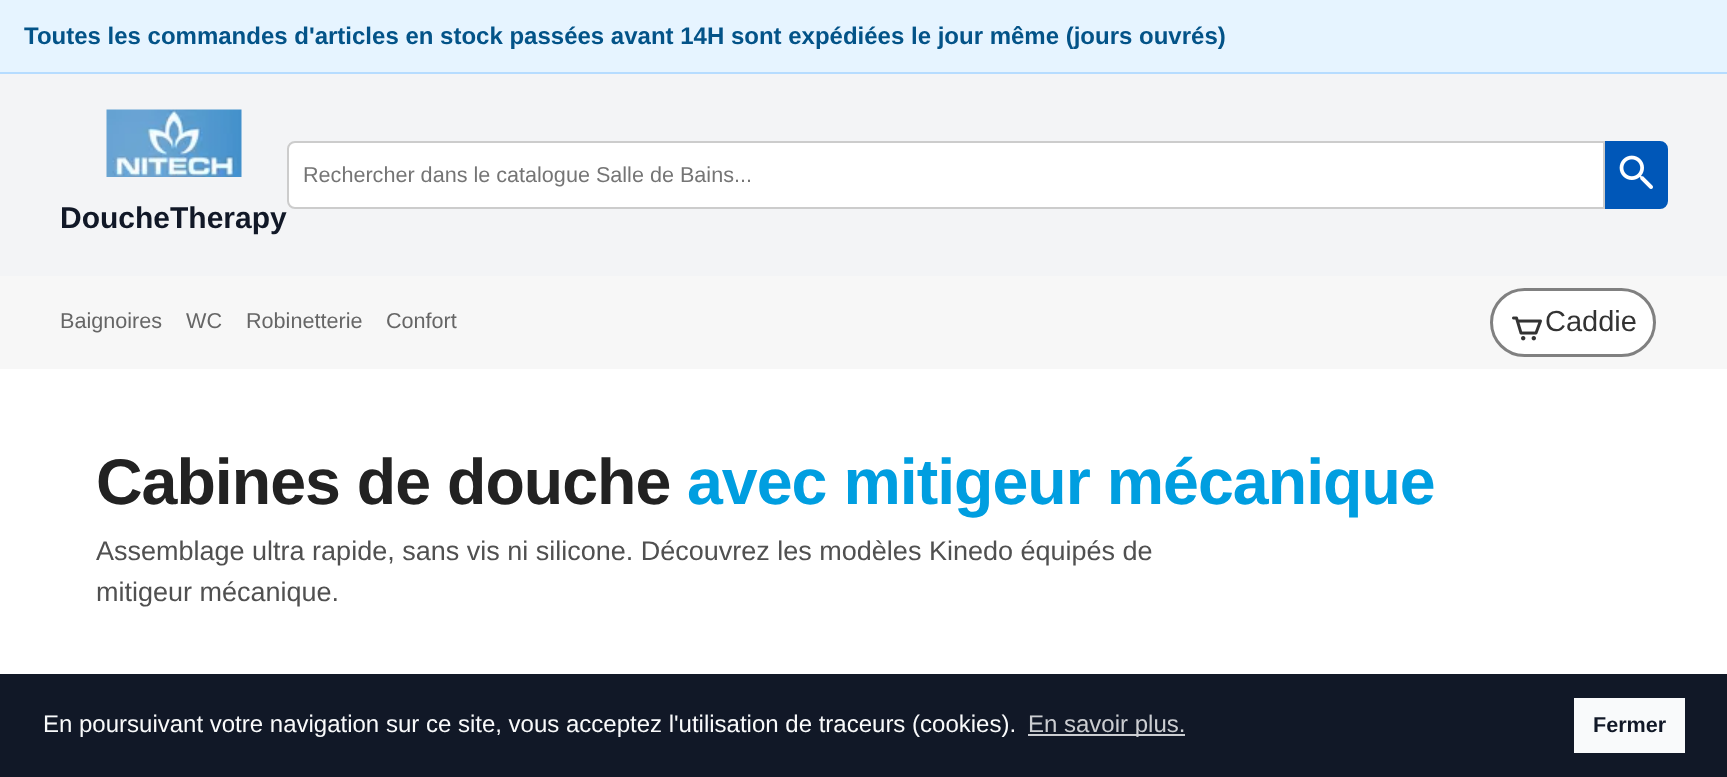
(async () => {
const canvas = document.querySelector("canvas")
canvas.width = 1727
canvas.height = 777
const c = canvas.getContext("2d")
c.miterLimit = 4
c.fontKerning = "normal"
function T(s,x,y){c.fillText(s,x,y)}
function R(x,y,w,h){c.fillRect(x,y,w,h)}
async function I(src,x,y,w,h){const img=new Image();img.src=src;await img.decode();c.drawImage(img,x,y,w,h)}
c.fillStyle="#fff"
R(0,0,1727,777)
c.fillStyle="#e6f4ff"
R(0,0,1727,72)
c.fillStyle="#b6dcff"
R(0,72,1727,2)
c.font="bold 24px Liberation Sans"
c.fillStyle="#035388"
T("Toutes les commandes d'articles en stock passées avant 14H sont expédiées le jour même (jours ouvrés)",24,44)
c.fillStyle="#f3f4f6"
R(0,74,1727,202)
c.fillStyle="#fff"
c.beginPath()
c.roundRect(288,142,1316,66,[7,0,0,7])
c.fill()
c.strokeStyle="#ccc"
c.lineWidth=2
c.stroke()
c.font="21.6px Liberation Sans"
c.fillStyle="#757575"
T("Rechercher dans le catalogue Salle de Bains...",303,182)
c.fillStyle="#0057b8"
c.beginPath()
c.roundRect(1606,142,61,66,[0,7,7,0])
c.fill()
c.strokeStyle="#0057b8"
c.stroke()
await I("1.png",1619,155,34,34)
await I("2.png",106,109,136,68)
c.font="bold 30px Liberation Sans"
c.fillStyle="#111827"
T("DoucheTherapy",60,228)
c.fillStyle="#f7f7f7"
R(0,276,1727,93)
c.font="21.6px Liberation Sans"
c.fillStyle="#666"
T("Baignoires",60,328)
T("WC",186,328)
T("Robinetterie",246,328)
T("Confort",386,328)
c.fillStyle="#fff"
c.beginPath()
c.roundRect(1491.5,289.5,163,66,33)
c.fill()
c.strokeStyle="#808080"
c.lineWidth=3
c.stroke()
await I("3.png",1512,316,30,25)
c.font="29px Liberation Sans"
c.fillStyle="#333"
T("Caddie",1545,331)
c.letterSpacing="-1px"
c.font="bold 64.5px Liberation Sans"
c.fillStyle="#222"
T("Cabines de douche",96,504)
c.fillStyle="#009ee0"
T("avec mitigeur mécanique",687,504)
c.letterSpacing="0px"
c.font="27px Liberation Sans"
c.fillStyle="#505050"
T("Assemblage ultra rapide, sans vis ni silicone. Découvrez les modèles Kinedo équipés de",96,560)
T("mitigeur mécanique.",96,601)
c.fillStyle="#111827"
R(0,674,1727,103)
c.font="24px Liberation Sans"
c.fillStyle="#f9fafb"
T("En poursuivant votre navigation sur ce site, vous acceptez l'utilisation de traceurs (cookies).",43,732)
c.fillStyle="#cbcdd1"
R(1028,734,157,2)
T("En savoir plus.",1028,732)
c.fillStyle="#f9fafb"
R(1574,698,111,55)
c.font="bold 21.6px Liberation Sans"
c.fillStyle="#111827"
T("Fermer",1593,732)
})()
